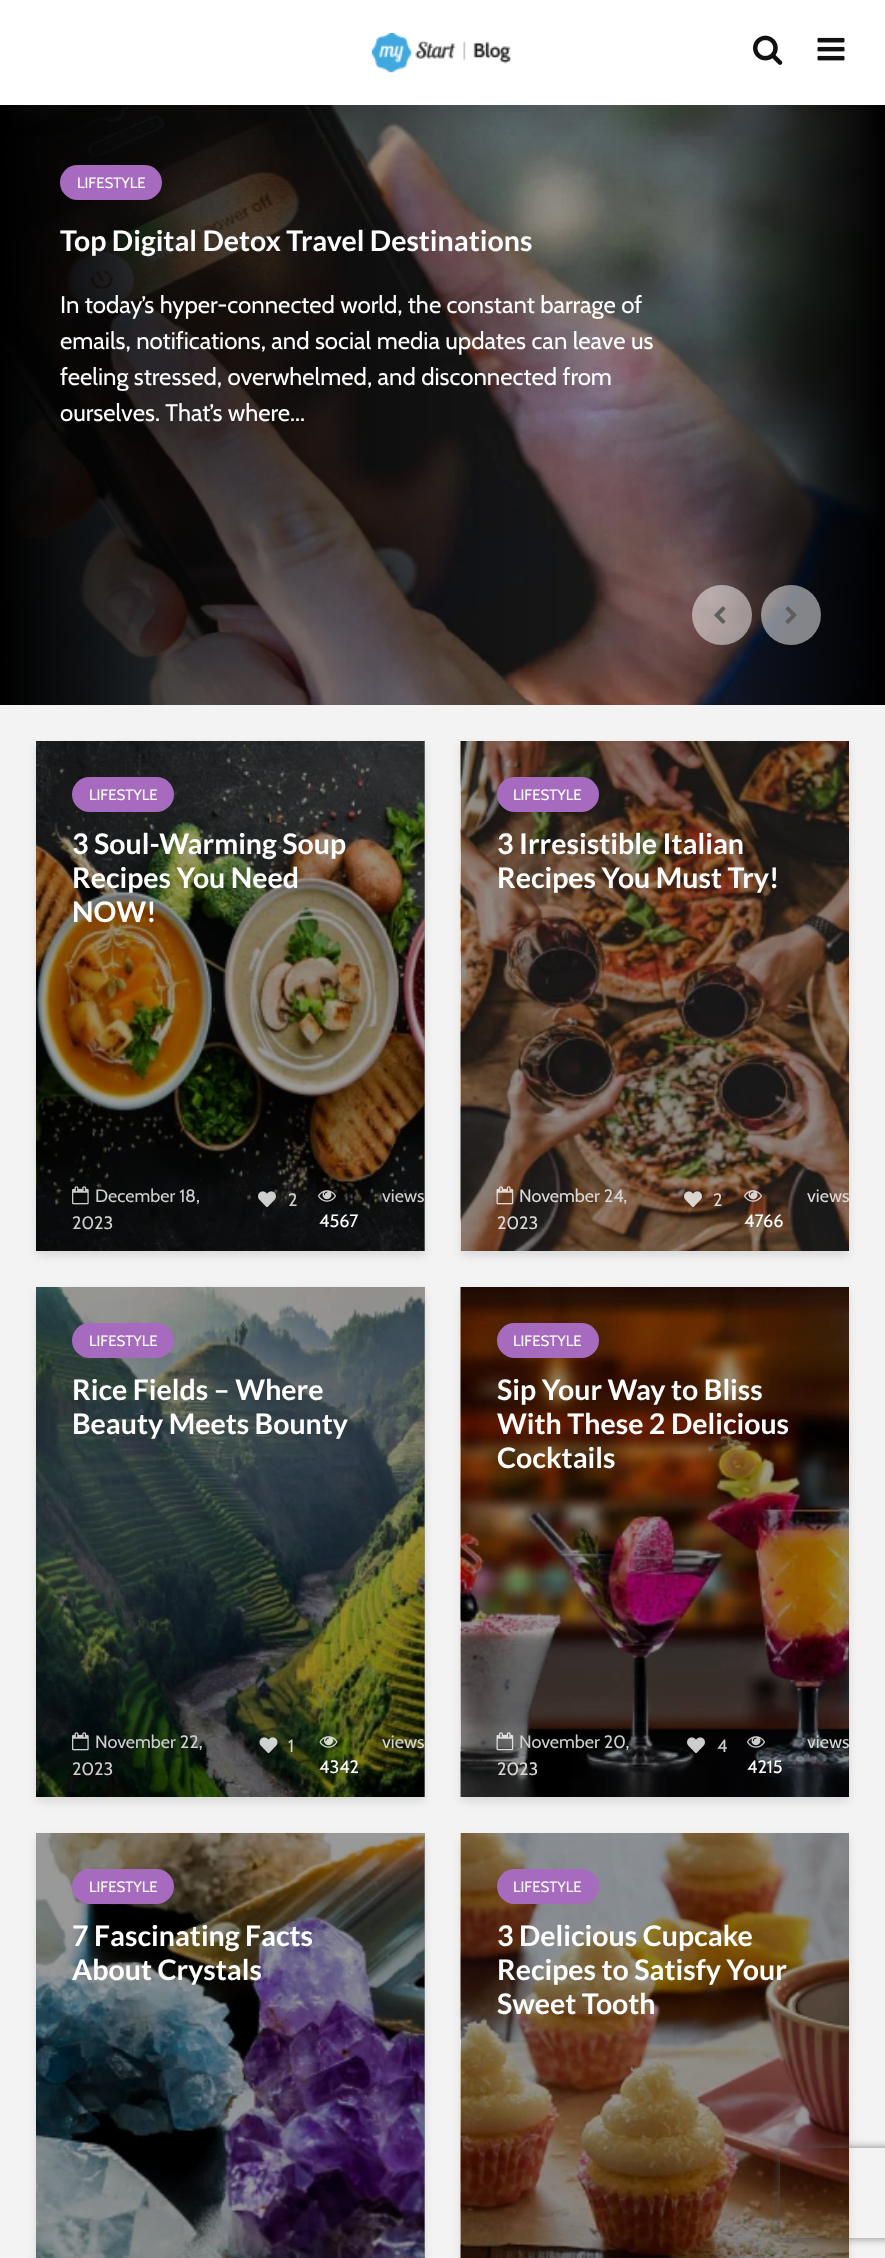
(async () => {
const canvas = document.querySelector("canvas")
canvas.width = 885
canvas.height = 2258
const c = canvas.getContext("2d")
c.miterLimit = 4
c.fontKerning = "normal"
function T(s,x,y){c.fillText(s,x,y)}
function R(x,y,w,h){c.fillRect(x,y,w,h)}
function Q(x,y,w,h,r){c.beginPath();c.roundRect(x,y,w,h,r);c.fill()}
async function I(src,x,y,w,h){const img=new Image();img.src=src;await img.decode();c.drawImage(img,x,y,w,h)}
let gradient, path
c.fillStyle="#f3f3f3"
R(0,0,885,2258)
await I("4.png",0,105,884,600)
gradient = c.createLinearGradient(708,405,885,405)
gradient.addColorStop(0,"#00000000")
gradient.addColorStop(1,"#000")
c.fillStyle = gradient
R(712,105,173,600)
c.fillStyle="#00000026"
c.filter="blur(15px)"
c.beginPath()
c.rect(0,0,885,105)
c.fill()
c.filter="none"
c.fillStyle="#fff"
R(0,0,885,105)
await I("1.png",372,33,139,40)
await I("2.png",753,35,30,30)
await I("3.png",817,37,28,24)
c.fillStyle="#a66bbe"
Q(60,165,102,35,17.5)
c.font="15px Cabin"
c.fillStyle="#fff"
T("LIFESTYLE",77,188)
c.font="bold 28.5px Lato"
T("Top Digital Detox Travel Destinations",60,251)
c.font="24px Cabin"
T("In today’s hyper-connected world, the constant barrage of",60,313)
T("emails, notifications, and social media updates can leave us",60,349)
T("feeling stressed, overwhelmed, and disconnected from",60,385)
T("ourselves. That’s where...",60,421)
c.fillStyle="#ffffff80"
c.beginPath()
c.arc(722,615,30,0,7)
c.fill()
await I("5.png",714,606,12,18)
c.beginPath()
c.arc(791,615,30,0,7)
c.fill()
await I("6.png",785,606,12,18)
c.fillStyle="#0001011a"
c.filter="blur(4px)"
c.beginPath()
c.rect(36,746,389,510)
c.fill()
c.filter="none"
c.fillStyle="#fff"
R(424,741,1,510)
await I("7.png",36,741,389,510)
c.fillStyle="#00000066"
R(36,741,389,510)
c.fillStyle="#a66bbe"
Q(72,777,102,35,17.5)
c.font="15px Cabin"
c.fillStyle="#fff"
T("LIFESTYLE",89,800)
c.font="bold 28.5px Lato"
T("3 Soul-Warming Soup",72,854)
T("Recipes You Need",72,888)
T("NOW!",72,922)
await I("8.png",72,1186,17,19)
c.font="18px Cabin"
c.fillStyle="#cecece"
T("December 18,",95,1202)
T("2023",72,1229)
await I("9.png",258,1191,18,17)
T("2",288,1206)
T("views",382,1202)
await I("10.png",318,1190,18,12)
c.fillStyle="#fff"
T("4567",319,1227)
c.fillStyle="#0001011a"
c.filter="blur(4px)"
c.beginPath()
c.rect(461,746,388,510)
c.fill()
c.filter="none"
await I("11.png",460,741,389,510)
c.fillStyle="#a66bbe"
Q(497,777,102,35,17.5)
c.font="15px Cabin"
c.fillStyle="#fff"
T("LIFESTYLE",513,800)
c.font="bold 28.5px Lato"
T("3 Irresistible Italian",497,854)
T("Recipes You Must Try!",497,888)
await I("12.png",496,1186,18,19)
c.font="18px Cabin"
c.fillStyle="#dad7d4"
T("November 24,",519,1202)
T("2023",497,1229)
await I("13.png",684,1191,18,17)
T("2",713,1206)
T("views",807,1202)
await I("14.png",744,1190,18,12)
c.fillStyle="#fff"
T("4766",744,1227)
c.fillStyle="#0001011a"
c.filter="blur(4px)"
c.beginPath()
c.rect(36,1292,389,510)
c.fill()
c.filter="none"
c.fillStyle="#fff"
R(424,1287,1,510)
await I("15.png",36,1287,389,510)
c.fillStyle="#00000066"
R(36,1287,389,510)
c.fillStyle="#a66bbe"
Q(72,1323,102,35,17.5)
c.font="15px Cabin"
c.fillStyle="#fff"
T("LIFESTYLE",89,1346)
c.font="bold 28.5px Lato"
T("Rice Fields – Where",72,1400)
T("Beauty Meets Bounty",72,1434)
await I("16.png",72,1732,17,19)
c.font="18px Cabin"
c.fillStyle="#cecece"
T("November 22,",95,1748)
T("2023",72,1775)
await I("17.png",259,1737,19,17)
c.fillStyle="#d3d5cf"
T("1",288,1752)
T("views",382,1748)
await I("18.png",319,1736,19,12)
c.fillStyle="#fff"
T("4342",319,1773)
c.fillStyle="#0001011a"
c.filter="blur(4px)"
c.beginPath()
c.rect(461,1292,388,510)
c.fill()
c.filter="none"
await I("19.png",460,1287,389,510)
c.fillStyle="#a66bbe"
Q(497,1323,102,35,17.5)
c.font="15px Cabin"
c.fillStyle="#fff"
T("LIFESTYLE",513,1346)
c.font="bold 28.5px Lato"
T("Sip Your Way to Bliss",497,1400)
T("With These 2 Delicious",497,1434)
T("Cocktails",497,1468)
await I("20.png",496,1732,18,19)
c.font="18px Cabin"
c.fillStyle="#cecece"
T("November 20,",519,1748)
c.fillStyle="#dad7d4"
T("2023",497,1775)
await I("21.png",687,1737,18,17)
c.fillStyle="#cecece"
T("4",717,1752)
c.fillStyle="#d3d5cf"
T("views",807,1748)
await I("22.png",747,1736,18,12)
c.fillStyle="#fff"
T("4215",747,1773)
c.fillStyle="#0001011a"
c.filter="blur(4px)"
c.beginPath()
c.rect(36,1838,389,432)
c.fill()
c.filter="none"
c.fillStyle="#fff"
R(424,1833,1,425)
await I("23.png",36,1833,389,425)
c.fillStyle="#00000066"
R(36,1833,389,425)
c.fillStyle="#a66bbe"
Q(72,1869,102,35,17.5)
c.font="15px Cabin"
c.fillStyle="#fff"
T("LIFESTYLE",89,1892)
c.font="bold 28.5px Lato"
T("7 Fascinating Facts",72,1946)
T("About Crystals",72,1980)
c.fillStyle="#0001011a"
c.filter="blur(4px)"
c.beginPath()
c.rect(461,1838,388,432)
c.fill()
c.filter="none"
await I("24.png",460,1833,389,425)
c.save()
path = new Path2D("M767 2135h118v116h-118zm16 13h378c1.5 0 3 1.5 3 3v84c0 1.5-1.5 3-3 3h-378c-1.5 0-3-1.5-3-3v-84c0-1.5 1.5-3 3-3z")
c.clip(path,"evenodd")
c.fillStyle="#808080"
c.filter="blur(4px)"
c.beginPath()
c.roundRect(780,2148,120,90,3)
c.fill()
c.filter="none"
c.restore()
c.fillStyle="#00000066"
R(461,1833,388,425)
c.fillStyle="#a66bbe"
Q(497,1869,102,35,17.5)
c.font="15px Cabin"
c.fillStyle="#fff"
T("LIFESTYLE",513,1892)
c.font="bold 28.5px Lato"
T("3 Delicious Cupcake",497,1946)
T("Recipes to Satisfy Your",497,1980)
T("Sweet Tooth",497,2014)
})()
